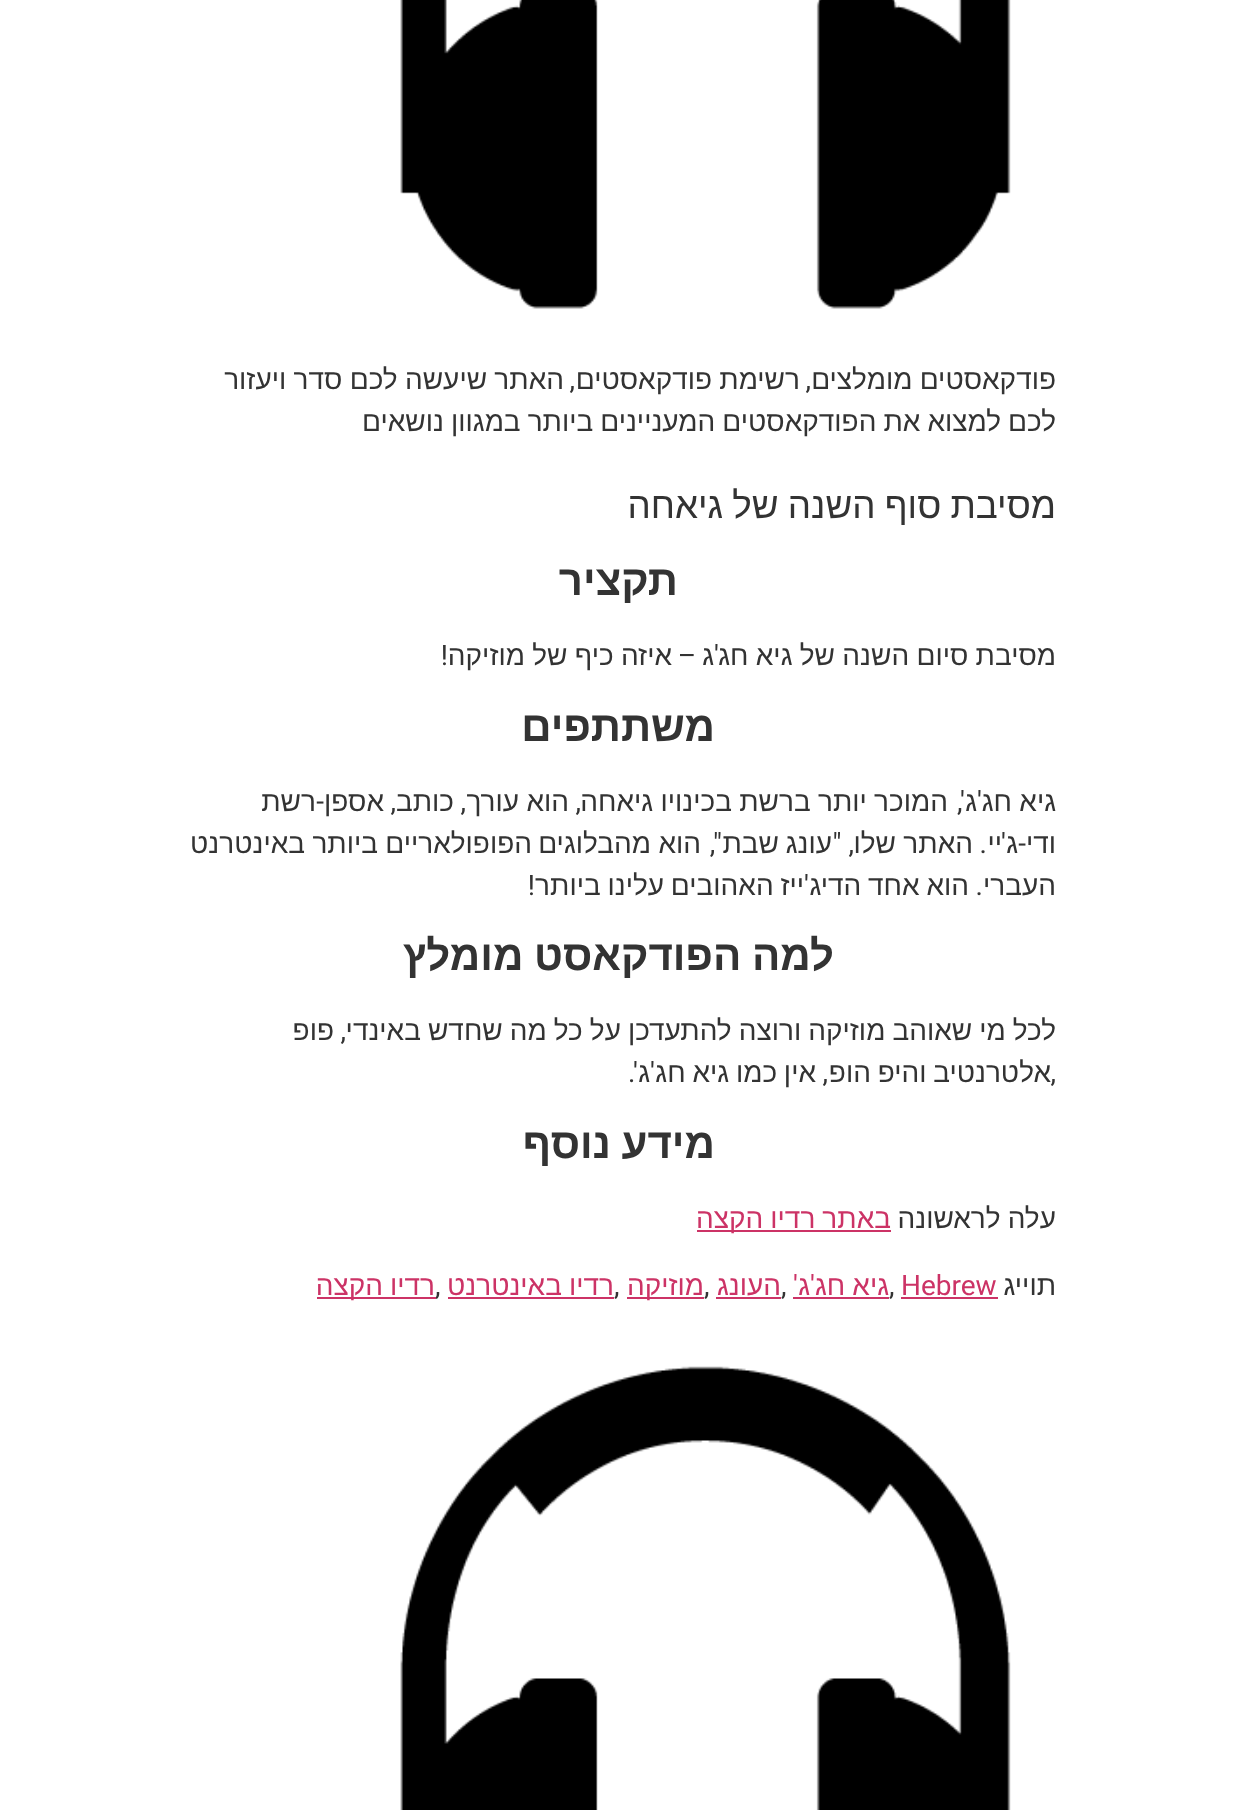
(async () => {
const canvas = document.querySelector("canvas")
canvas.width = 1236
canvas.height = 1810
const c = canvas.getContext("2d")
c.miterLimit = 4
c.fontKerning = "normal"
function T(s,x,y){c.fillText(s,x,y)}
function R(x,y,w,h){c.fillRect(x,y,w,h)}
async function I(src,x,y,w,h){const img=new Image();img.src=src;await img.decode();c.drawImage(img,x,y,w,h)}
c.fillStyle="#fff"
R(0,0,1236,1810)
await I("1.png",400,0,611,309)
c.wordSpacing="-0.5px"
c.direction="rtl"
c.font="28px Liberation Sans"
c.fillStyle="#333"
T("פודקאסטים מומלצים",1056,389)
c.wordSpacing="0px"
c.font="28px Roboto"
T(",",811,389)
c.wordSpacing="-0.5px"
c.font="28px Liberation Sans"
T("רשימת פודקאסטים",800,389)
c.wordSpacing="0px"
c.font="28px Roboto"
T(",",575,389)
c.wordSpacing="-0.5px"
c.font="28px Liberation Sans"
T("האתר שיעשה לכם סדר ויעזור",564,389)
c.wordSpacing="-0.75px"
T("לכם למצוא את הפודקאסטים המעניינים ביותר במגוון נושאים",1056,431)
c.wordSpacing="-1px"
c.font="36.75px Liberation Sans"
T("מסיבת סוף השנה של גיאחה",1056,518)
c.wordSpacing="0px"
c.font="bold 42px Liberation Sans"
T("תקציר",678,595)
c.wordSpacing="-0.5px"
c.font="28px Liberation Sans"
T("מסיבת סיום השנה של גיא חג",1056,665)
c.wordSpacing="0px"
c.font="28px Roboto"
T("'",719,665)
c.font="28px Liberation Sans"
T("ג",714,665)
c.font="28px Roboto"
T("–",696,665)
c.wordSpacing="-0.5px"
c.font="28px Liberation Sans"
T("איזה כיף של מוזיקה",672,665)
c.wordSpacing="0px"
c.font="28px Roboto"
T("!",448,665)
c.font="bold 42px Liberation Sans"
T("משתתפים",715,741)
c.wordSpacing="-0.5px"
c.font="28px Liberation Sans"
T("גיא חג",1056,811)
c.wordSpacing="0px"
c.font="28px Roboto"
T("'",982,811)
c.font="28px Liberation Sans"
T("ג",977,811)
c.font="28px Roboto"
T("',",965,811)
c.wordSpacing="-0.5px"
c.font="28px Liberation Sans"
T("המוכר יותר ברשת בכינויו גיאחה",948,811)
T("הוא עורך",569,811)
c.wordSpacing="0px"
T("כותב",454,811)
T("אספן",384,811)
c.font="28px Roboto"
T("-",324,811)
c.font="28px Liberation Sans"
T("רשת",316,811)
c.font="28px Roboto"
T(",",581,811)
T(",",466,811)
T(",",396,811)
c.font="28px Liberation Sans"
T("ודי",1056,853)
c.font="28px Roboto"
T("-",1026,853)
c.font="28px Liberation Sans"
T("ג",1018,853)
c.font="28px Roboto"
T("'",1006,853)
c.font="28px Liberation Sans"
T("יי",1002,853)
T("האתר",973,853)
T("שלו",896,853)
c.font="28px Roboto"
T(", \"",854,853)
c.font="28px Liberation Sans"
T("עונג",832,853)
T("שבת",779,853)
c.font="28px Roboto"
T("\",",722,853)
c.font="28px Liberation Sans"
T("הוא",701,853)
T("מהבלוגים",651,853)
T("הפופולאריים",532,853)
T("ביותר",378,853)
T("באינטרנט",305,853)
c.font="28px Roboto"
T(".",987,853)
c.font="28px Liberation Sans"
T("העברי",1056,895)
c.font="28px Roboto"
T(".",983,895)
c.wordSpacing="-1px"
c.font="28px Liberation Sans"
T("הוא אחד הדיג",969,895)
c.wordSpacing="0px"
c.font="28px Roboto"
T("'",809,895)
c.wordSpacing="-1px"
c.font="28px Liberation Sans"
T("ייז האהובים עלינו ביותר",804,895)
c.wordSpacing="0px"
c.font="28px Roboto"
T("!",535,895)
c.wordSpacing="-1px"
c.font="bold 42px Liberation Sans"
T("למה הפודקאסט מומלץ",834,970)
c.wordSpacing="-0.75px"
c.font="28px Liberation Sans"
T("לכל מי שאוהב מוזיקה ורוצה להתעדכן על כל מה שחדש באינדי",1056,1040)
c.wordSpacing="0px"
c.font="28px Roboto"
T(",",346,1040)
c.font="28px Liberation Sans"
T("פופ",334,1040)
c.wordSpacing="-1px"
T("אלטרנטיב והיפ הופ",1051,1082)
c.wordSpacing="0px"
c.font="28px Roboto"
T(",",1056,1082)
T(",",828,1082)
c.wordSpacing="-1px"
c.font="28px Liberation Sans"
T("אין כמו גיא חג",816,1082)
c.wordSpacing="0px"
c.font="28px Roboto"
T("'",655,1082)
c.font="28px Liberation Sans"
T("ג",650,1082)
c.font="28px Roboto"
T("'.",638,1082)
c.wordSpacing="-1px"
c.font="bold 42px Liberation Sans"
T("מידע נוסף",715,1158)
c.wordSpacing="-0.75px"
c.font="28px Liberation Sans"
T("עלה לראשונה",1056,1228)
c.fillStyle="#c36"
R(697,1230,194,2)
T("באתר רדיו הקצה",891,1228)
c.wordSpacing="0px"
c.fillStyle="#333"
T("תוייג",1056,1295)
c.direction="ltr"
c.font="28px Roboto"
c.fillStyle="#c36"
T("Hebrew",901,1295)
c.fillStyle="#333"
T(",",889,1295)
c.fillStyle="#c36"
R(901,1297,97,2)
R(793,1297,96,2)
c.wordSpacing="-0.75px"
c.direction="rtl"
c.font="28px Liberation Sans"
T("גיא חג",889,1295)
c.wordSpacing="0px"
c.font="28px Roboto"
T("'",815,1295)
c.font="28px Liberation Sans"
T("ג",810,1295)
c.font="28px Roboto"
T("'",798,1295)
c.direction="ltr"
c.fillStyle="#333"
T(",",781,1295)
c.fillStyle="#c36"
R(716,1297,65,2)
c.direction="rtl"
c.font="28px Liberation Sans"
T("העונג",781,1295)
c.direction="ltr"
c.font="28px Roboto"
c.fillStyle="#333"
T(",",704,1295)
c.fillStyle="#c36"
R(627,1297,77,2)
c.direction="rtl"
c.font="28px Liberation Sans"
T("מוזיקה",704,1295)
c.direction="ltr"
c.font="28px Roboto"
c.fillStyle="#333"
T(",",614,1295)
c.fillStyle="#c36"
R(448,1297,166,2)
c.wordSpacing="-0.75px"
c.direction="rtl"
c.font="28px Liberation Sans"
T("רדיו באינטרנט",614,1295)
c.wordSpacing="0px"
c.direction="ltr"
c.font="28px Roboto"
c.fillStyle="#333"
T(",",435,1295)
c.fillStyle="#c36"
R(317,1297,119,2)
c.wordSpacing="-0.75px"
c.direction="rtl"
c.font="28px Liberation Sans"
T("רדיו הקצה",435,1295)
await I("2.png",400,1366,611,444)
})()
